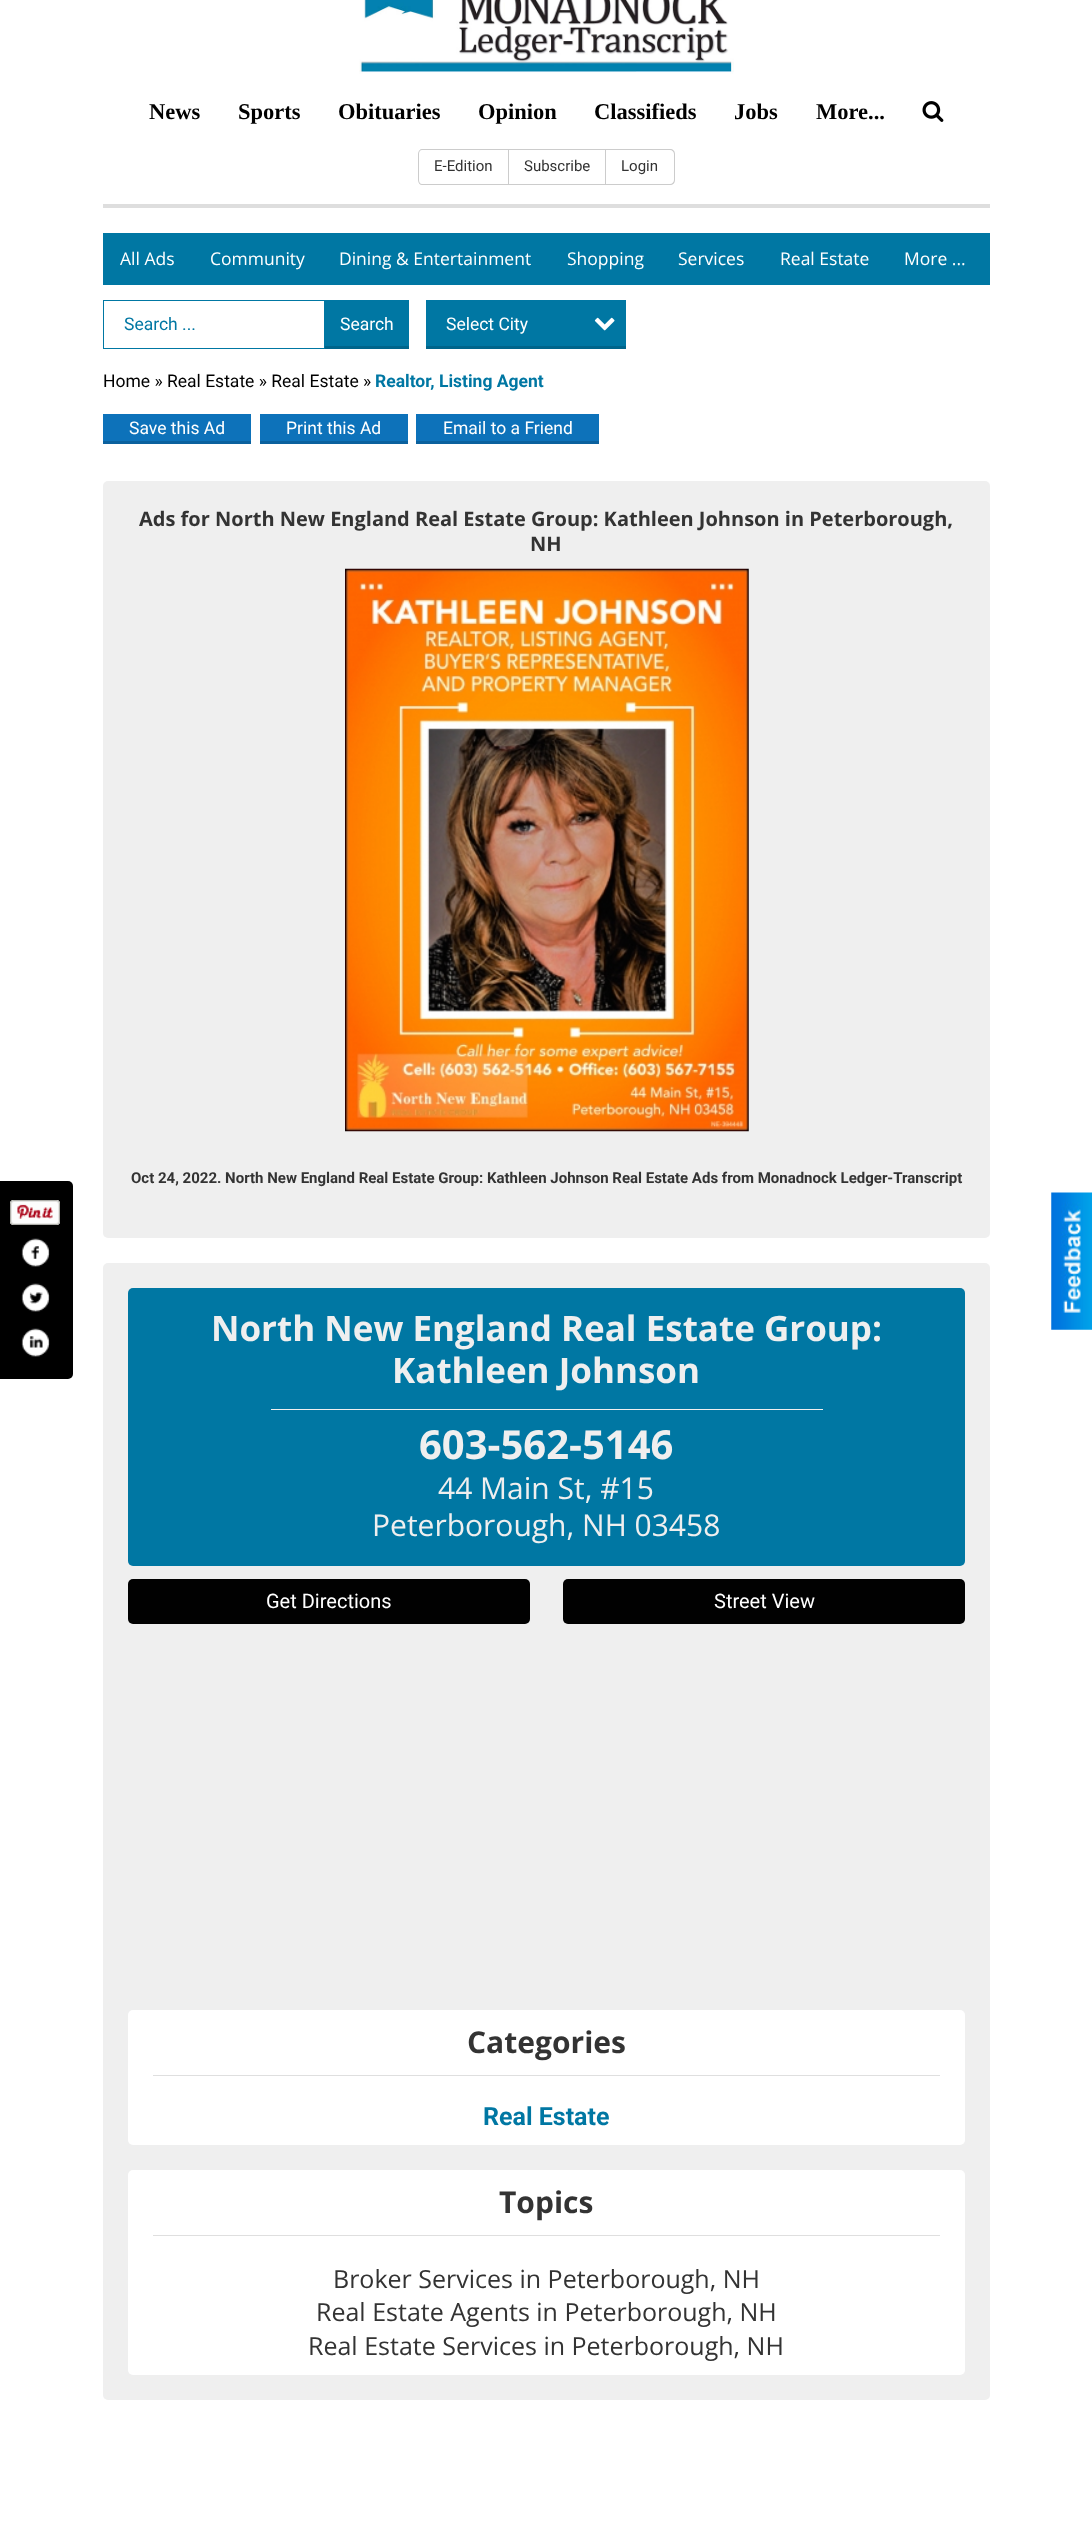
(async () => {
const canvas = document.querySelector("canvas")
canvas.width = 1092
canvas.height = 2522
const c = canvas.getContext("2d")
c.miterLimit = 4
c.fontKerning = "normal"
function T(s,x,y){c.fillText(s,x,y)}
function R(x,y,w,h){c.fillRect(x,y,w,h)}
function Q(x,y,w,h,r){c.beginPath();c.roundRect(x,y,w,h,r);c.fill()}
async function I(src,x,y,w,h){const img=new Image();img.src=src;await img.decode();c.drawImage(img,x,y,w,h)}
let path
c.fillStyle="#fff"
R(0,0,1092,2522)
c.fillStyle="#dedede"
R(103,204,887,4)
await I("1.png",359,0,375,74)
c.font="bold 22.5px Liberation Serif"
c.fillStyle="#000"
T("News",149,119)
T("Sports",238,119)
T("Obituaries",338,119)
T("Opinion",478,119)
T("Classifieds",594,119)
T("Jobs",734,119)
T("More...",816,119)
await I("2.png",922,101,22,21)
c.fillStyle="#ccc"
path = new Path2D("M422 149h86v36h-86c-2 0-4-2-4-5v-26c0-3 2-5 4-5zm0 1h86v34h-86c-2 0-3-2-3-4v-26c0-2 1-4 3-4z")
c.fill(path,"evenodd")
c.font="15px Roboto"
c.fillStyle="#333"
T("E-Edition",434,171)
c.strokeStyle="#ccc"
c.strokeRect(508.5,149.5,97,35)
T("Subscribe",524,171)
c.fillStyle="#ccc"
path = new Path2D("M606 149h64c3 0 5 2 5 5v26c0 3-2 5-5 5h-64zm0 1h64c2 0 4 2 4 4v26c0 2-2 4-4 4h-64z")
c.fill(path,"evenodd")
c.fillStyle="#333"
T("Login",621,171)
c.fillStyle="#000"
c.beginPath()
c.roundRect(0,1181,73,198,[0,5,5,0])
c.fill()
await I("3.png",10,1200,50,25)
await I("4.png",21,1238,29,29)
await I("5.png",21,1283,29,29)
await I("6.png",21,1328,29,29)
c.fillStyle="#0077a3"
R(103,233,887,52)
c.font="17.5px Open Sans"
c.fillStyle="#fff"
T("All Ads",120,265)
T("Community",210,265)
T("Dining & Entertainment",339,265)
T("Shopping",567,265)
T("Services",678,265)
T("Real Estate",780,265)
T("More ...",904,265)
c.strokeStyle="#0077a3"
c.strokeRect(103.5,300.5,221,48)
c.font="17.5px Roboto"
c.fillStyle="#0077a3"
T("Search ...",124,330)
R(325,300,84,46)
c.fillStyle="#00658b"
R(325,346,84,3)
c.fillStyle="#fff"
T("Search",340,330)
c.fillStyle="#0077a3"
R(426,300,200,46)
c.fillStyle="#00658b"
R(426,346,200,3)
c.fillStyle="#fff"
T("Select City",446,330)
await I("7.png",594,317,21,14)
c.fillStyle="#000"
T("Home » Real Estate » Real Estate »",103,387)
c.font="bold 17.5px Roboto"
c.fillStyle="#0077a3"
T("Realtor, Listing Agent",375,387)
c.fillStyle="#0d72ba"
R(103,414,148,27)
c.fillStyle="#0b619e"
R(103,441,148,3)
c.font="17.5px Roboto"
c.fillStyle="#fff"
T("Save this Ad",129,434)
c.fillStyle="#0d72ba"
R(260,414,148,27)
c.fillStyle="#0b619e"
R(260,441,148,3)
c.fillStyle="#fff"
T("Print this Ad",286,434)
c.fillStyle="#0d72ba"
R(416,414,183,27)
c.fillStyle="#0b619e"
R(416,441,183,3)
c.fillStyle="#fff"
T("Email to a Friend",443,434)
c.fillStyle="#efefef"
Q(103,481,887,757,5)
c.font="bold 20px Open Sans"
c.fillStyle="#333"
T("Ads for North New England Real Estate Group: Kathleen Johnson in Peterborough,",139,526)
T("NH",530,551)
await I("8.png",345,568,404,564)
c.font="bold 15px Roboto"
T("Oct 24, 2022. North New England Real Estate Group: Kathleen Johnson Real Estate Ads from Monadnock Ledger-Transcript",131,1183)
c.fillStyle="#efefef"
Q(103,1263,887,1137,5)
c.fillStyle="#0077a3"
Q(128,1288,837,278,5)
c.font="bold 35px Open Sans"
c.fillStyle="#efefef"
T("North New England Real Estate Group:",211,1341)
T("Kathleen Johnson",392,1383)
R(271,1409,552,1)
c.font="bold 40px Open Sans"
T("603-562-5146",419,1459)
c.font="30px Open Sans"
T("44 Main St, #15",438,1499)
T("Peterborough, NH 03458",372,1536)
c.fillStyle="#010101"
Q(128,1579,402,45,5)
c.font="20px Roboto"
c.fillStyle="#fff"
T("Get Directions",266,1608)
c.fillStyle="#010101"
Q(563,1579,402,45,5)
c.fillStyle="#fff"
T("Street View",714,1608)
Q(128,2010,837,135,5)
c.fillStyle="#dfdfdf"
R(153,2075,787,1)
c.font="bold 30px Open Sans"
c.fillStyle="#333"
T("Categories",467,2053)
c.font="bold 25px Roboto"
c.fillStyle="#0077a3"
T("Real Estate",483,2125)
c.fillStyle="#fff"
Q(128,2170,837,205,5)
c.fillStyle="#dfdfdf"
R(153,2235,787,1)
c.font="bold 30px Open Sans"
c.fillStyle="#333"
T("Topics",499,2213)
c.font="25px Open Sans"
T("Broker Services in Peterborough, NH",333,2288)
T("Real Estate Agents in Peterborough, NH",316,2321)
T("Real Estate Services in Peterborough, NH",308,2355)
await I("9.png",1051,1192,41,138)
})()
